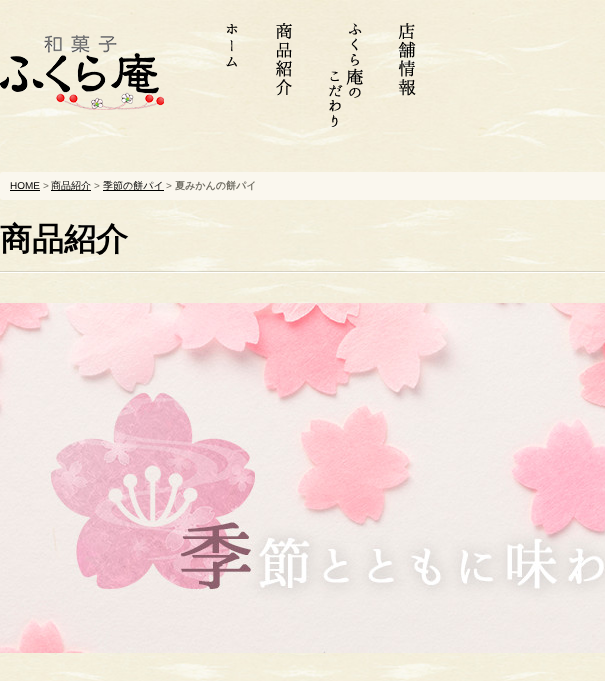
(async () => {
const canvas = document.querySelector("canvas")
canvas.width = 605
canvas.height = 681
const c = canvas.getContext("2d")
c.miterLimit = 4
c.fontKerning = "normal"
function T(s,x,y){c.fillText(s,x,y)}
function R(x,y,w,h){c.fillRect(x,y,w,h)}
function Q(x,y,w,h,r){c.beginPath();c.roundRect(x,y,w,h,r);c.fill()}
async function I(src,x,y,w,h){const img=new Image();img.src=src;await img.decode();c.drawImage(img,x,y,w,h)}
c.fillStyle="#fff"
R(0,0,605,681)
await I("1.png",0,0,605,681)
await I("2.png",0,35,164,75)
await I("3.png",226,24,12,43)
await I("4.png",276,23,16,73)
await I("5.png",329,23,34,104)
await I("6.png",398,23,18,73)
c.fillStyle="#faf7ee"
Q(0,172,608,28,3)
c.font="10px Liberation Sans"
c.fillStyle="#000"
T("HOME",10,189)
R(10,190,30,1)
c.fillStyle="#6e6c62"
T(">",43,189)
c.fillStyle="#000"
R(51,190,40,1)
c.font="500 10px WenQuanYi Zen Hei"
T("商品紹介",51,189)
c.font="10px Liberation Sans"
c.fillStyle="#6e6c62"
T(">",94,189)
c.fillStyle="#000"
R(103,190,61,1)
c.font="500 10px WenQuanYi Zen Hei"
T("季節の餅パイ",103,189)
c.font="10px Liberation Sans"
c.fillStyle="#6e6c62"
T(">",166,189)
c.font="bold 10px WenQuanYi Zen Hei"
T("夏みかんの餅パイ",175,189)
await I("7.png",0,271,605,2)
c.font="bold 32px WenQuanYi Zen Hei"
c.fillStyle="#000"
T("商品紹介",0,250)
await I("8.png",0,303,605,350)
})()
